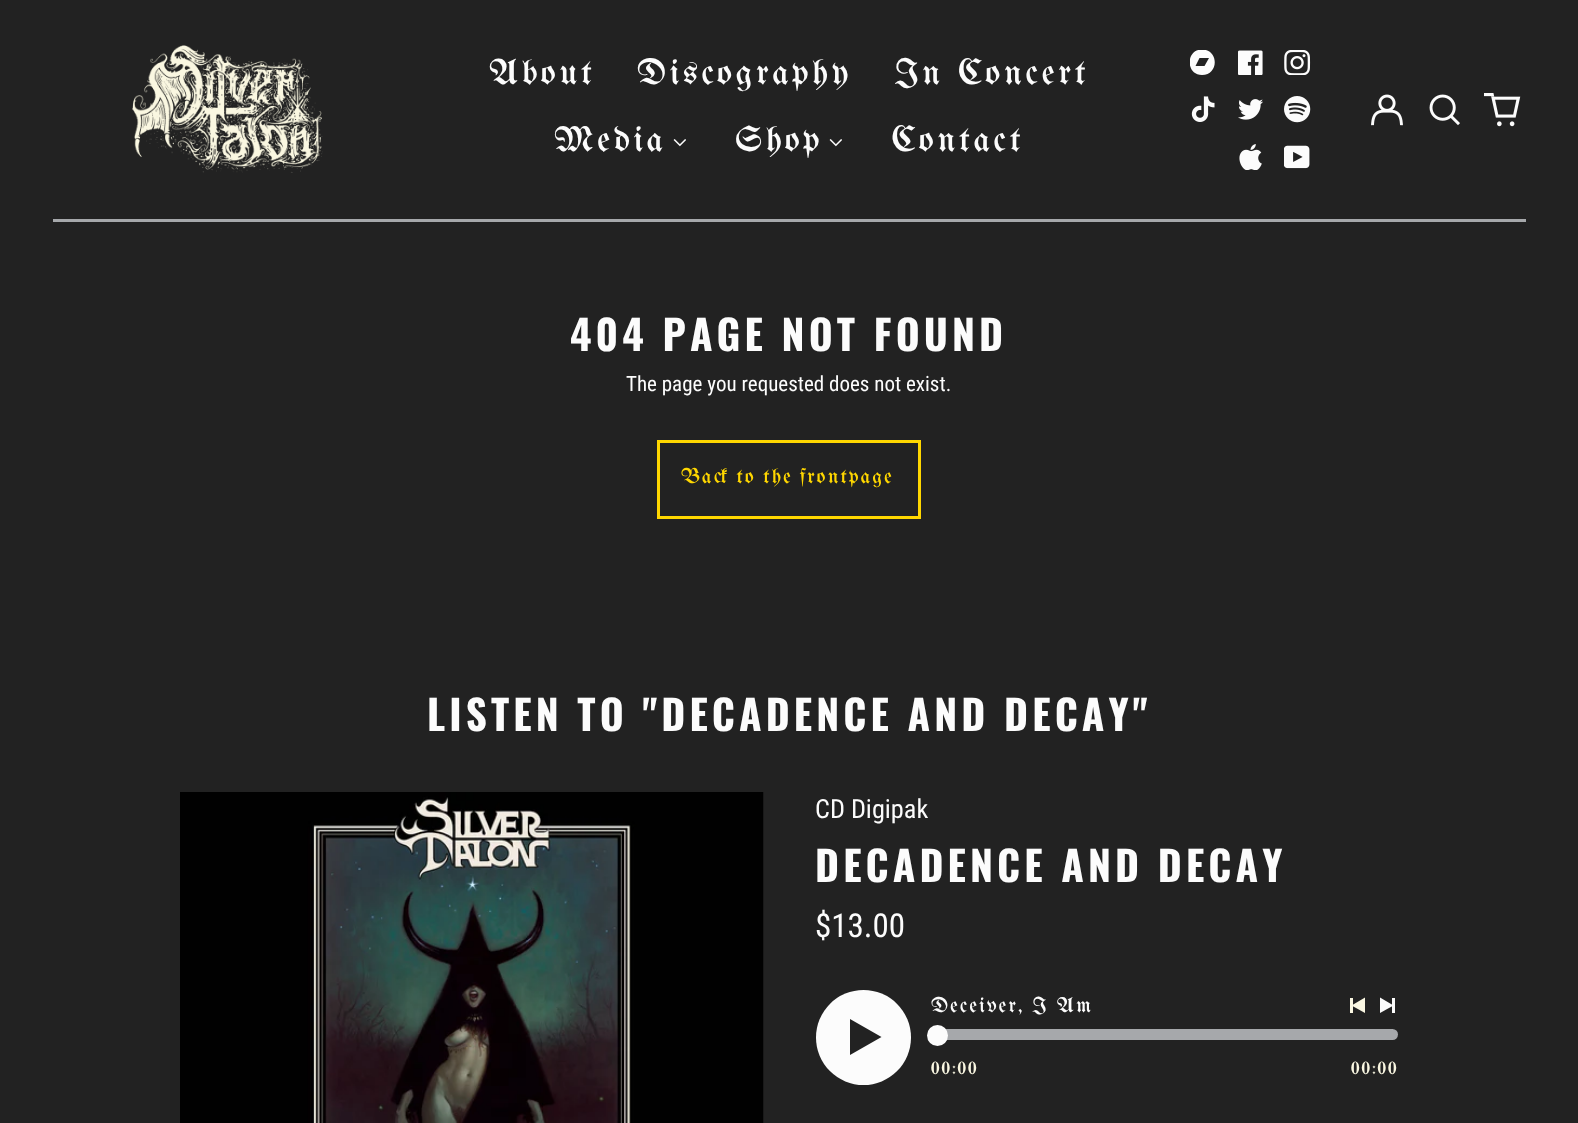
(async () => {
const canvas = document.querySelector("canvas")
canvas.width = 1578
canvas.height = 1123
const c = canvas.getContext("2d")
c.miterLimit = 4
c.fontKerning = "none"
function T(s,x,y){c.fillText(s,x,y)}
function R(x,y,w,h){c.fillRect(x,y,w,h)}
function Q(x,y,w,h,r){c.beginPath();c.roundRect(x,y,w,h,r);c.fill()}
async function I(src,x,y,w,h){const img=new Image();img.src=src;await img.decode();c.drawImage(img,x,y,w,h)}
let path
c.fillStyle="#222"
R(0,0,1578,1123)
c.fillStyle="#a6a8ab"
R(53,219,1473,3)
await I("1.png",132,45,191,128)
c.letterSpacing="3.5px"
c.font="35.75px UnifrakturMaguntia"
c.fillStyle="#fcfcfc"
T("About",489,84)
T("Discography",637,84)
T("In Concert",894,84)
T("Media",554,151)
await I("2.png",673,139,13,8)
T("Shop",735,151)
await I("2.png",829,139,13,8)
T("Contact",891,151)
c.save()
c.beginPath()
c.rect(1190,50,27,25)
c.clip()
path = new Path2D("M1204.5 66h-9l4-8h9.5zm-2.5-16.5c-16.5 0-16.5 25.5 0 25.5c17 0 17-25.5 0-25.5z")
c.fill(path)
c.restore()
await I("3.png",1238,50,25,25)
await I("4.png",1284,50,27,25)
await I("5.png",1191,96,24,26)
await I("6.png",1238,99,25,21)
await I("7.png",1284,96,27,27)
await I("8.png",1239,144,23,26)
await I("9.png",1284,145,26,24)
await I("10.png",1371,94,32,32)
await I("11.png",1429,94,31,32)
await I("12.png",1484,93,37,34)
c.letterSpacing="4.1px"
c.font="bold 41px Oswald"
T("404 PAGE NOT FOUND",570,351)
c.letterSpacing="0px"
c.font="21px Roboto Condensed"
T("The page you requested does not exist.",626,391)
c.strokeStyle="#ffd700"
c.lineWidth=3
c.strokeRect(658.5,441.5,261,76)
c.letterSpacing="2.1px"
c.wordSpacing="-1px"
c.font="21px UnifrakturMaguntia"
c.fillStyle="#ffd700"
T("Back to the frontpage",681,483)
c.letterSpacing="4.1px"
c.wordSpacing="0px"
c.font="bold 41px Oswald"
c.fillStyle="#fcfcfc"
T("LISTEN TO \"DECADENCE AND DECAY\"",427,731)
await I("13.png",180,792,584,331)
c.letterSpacing="0px"
c.font="26.25px Roboto Condensed"
T("CD Digipak",815,818)
c.letterSpacing="4.1px"
c.font="bold 41px Oswald"
T("DECADENCE AND DECAY",815,882)
c.letterSpacing="0px"
c.font="33px Roboto Condensed"
T("$13.00",815,937)
c.beginPath()
c.arc(863.5,1037.5,47.5,0,7)
c.fill()
c.fillStyle="#222"
path = new Path2D("M881.5 1037l-31.5 18v-36z")
c.fill(path)
c.letterSpacing="2.1px"
c.font="21px UnifrakturMaguntia"
c.fillStyle="#fcfcfc"
T("Deceiver, I Am",931,1012)
c.fillStyle="#faf7e2"
path = new Path2D("M1351.5 1005.5l13.5 7.5v-15.5z")
c.fill(path)
R(1350,998,3,15)
c.fillStyle="#fcfcfc"
path = new Path2D("M1393.5 1005.5l-13.5 7.5v-15.5z")
c.fill(path)
R(1392,998,3,15)
c.fillStyle="#a6a8ab"
Q(932,1029,466,11,5.5)
c.fillStyle="#fcfcfc"
c.beginPath()
c.arc(937.5,1035.5,10.5,0,7)
c.fill()
c.letterSpacing="2px"
c.font="18px UnifrakturMaguntia"
c.fillStyle="#faf7e2"
T("00:00",931,1074)
T("00:00",1351,1074)
})()
